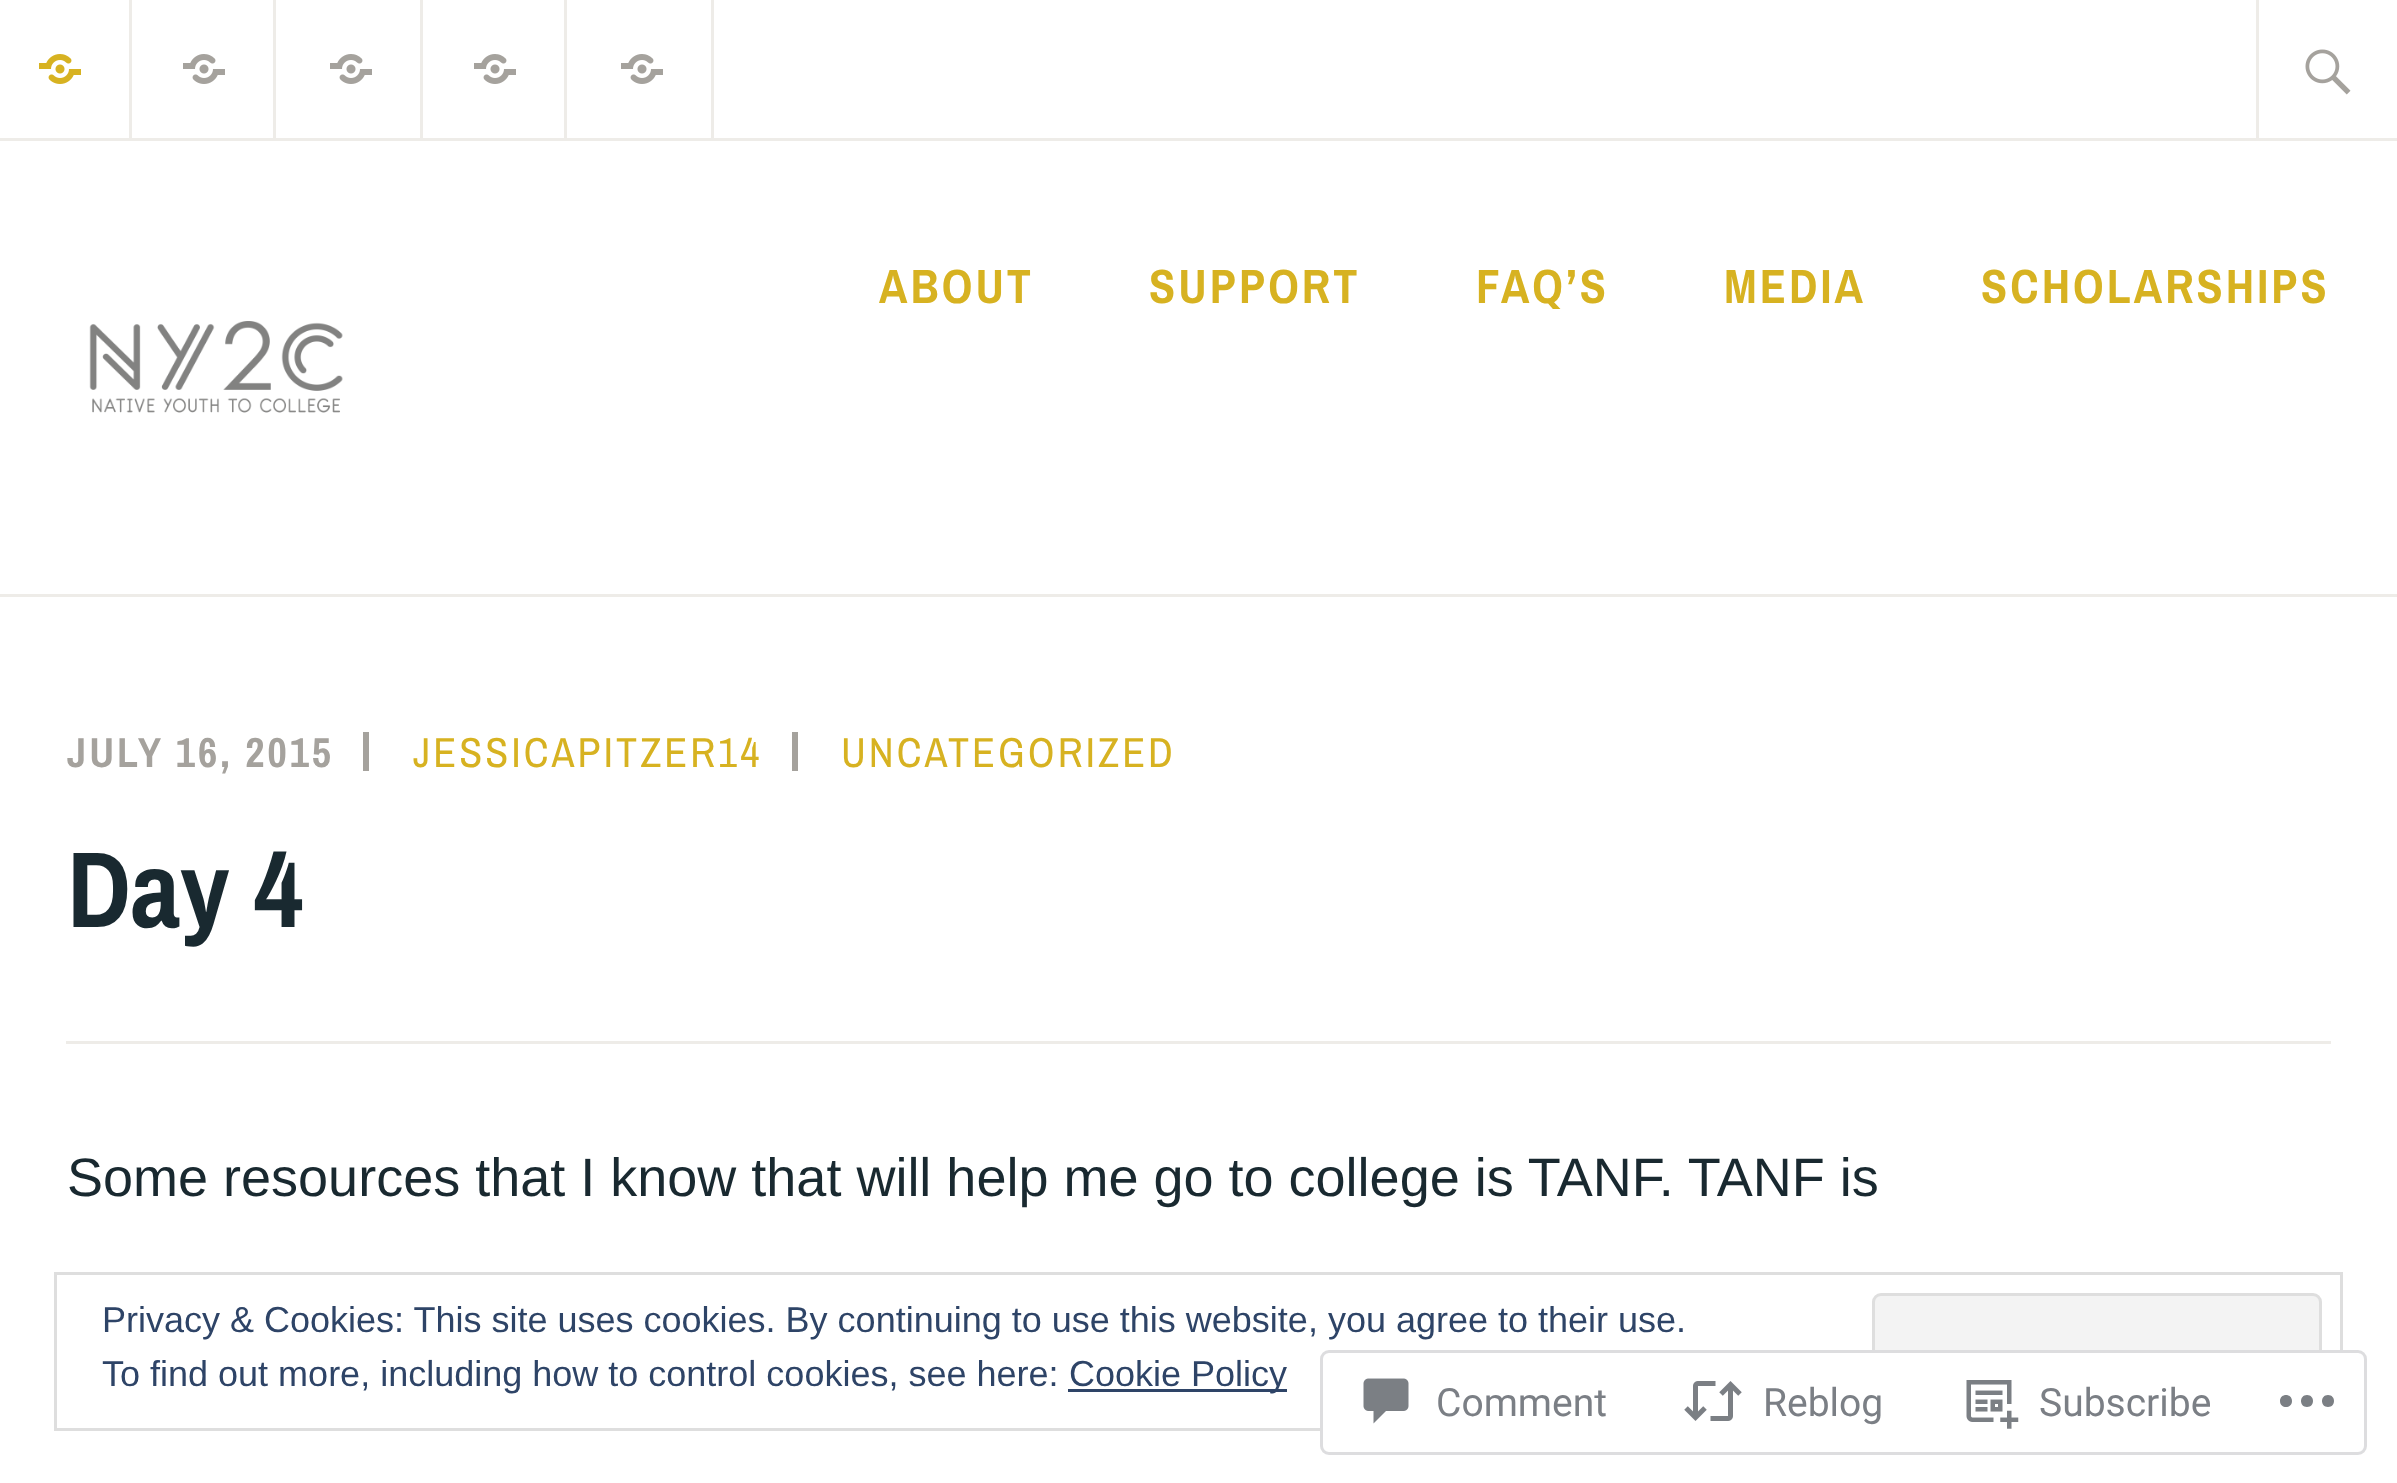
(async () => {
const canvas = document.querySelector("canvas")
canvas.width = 2397
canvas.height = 1483
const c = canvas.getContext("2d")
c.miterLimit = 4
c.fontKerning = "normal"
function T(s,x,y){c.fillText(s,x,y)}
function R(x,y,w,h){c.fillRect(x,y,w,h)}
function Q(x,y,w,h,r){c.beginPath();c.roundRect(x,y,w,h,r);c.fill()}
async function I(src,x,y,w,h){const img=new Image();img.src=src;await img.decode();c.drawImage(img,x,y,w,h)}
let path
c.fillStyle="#fff"
R(0,0,2397,1483)
c.fillStyle="#eeece8"
R(0,594,2397,3)
R(0,138,2397,3)
R(129,0,3,138)
await I("1.png",39,54,42,30)
R(273,0,3,138)
await I("2.png",183,54,42,30)
R(420,0,3,138)
await I("2.png",330,54,42,30)
R(564,0,3,138)
await I("2.png",474,54,42,30)
R(711,0,3,138)
await I("2.png",621,54,42,30)
R(2256,0,3,138)
await I("3.png",2305,49,46,46)
c.letterSpacing="3px"
c.font="bold 48px Archivo Narrow"
c.fillStyle="#d7b221"
T("ABOUT",879,303)
T("SUPPORT",1149,303)
T("FAQ’S",1476,303)
T("MEDIA",1724,303)
T("SCHOLARSHIPS",1981,303)
await I("4.png",89,321,254,92)
c.font="bold 42px Archivo Narrow"
c.fillStyle="#a5a29d"
T("JULY 16, 2015",67,767)
R(363,732,6,39)
c.font="42px Archivo Narrow"
c.fillStyle="#d7b221"
T("JESSICAPITZER14",413,767)
c.fillStyle="#a5a29d"
R(792,732,6,39)
c.fillStyle="#d7b221"
T("UNCATEGORIZED",841,767)
c.fillStyle="#eeece8"
R(66,1041,2265,3)
c.letterSpacing="0px"
c.font="bold 108px Archivo Narrow"
c.fillStyle="#192930"
T("Day 4",67,927)
c.font="54px Liberation Sans"
T("Some resources that I know that will help me go to college is TANF. TANF is",67,1196)
c.strokeStyle="#dedede"
c.lineWidth=3
c.strokeRect(55.5,1273.5,2286,156)
c.font="36px Liberation Sans"
c.fillStyle="#2e4467"
T("Privacy & Cookies: This site uses cookies. By continuing to use this website, you agree to their use.",102,1332)
c.fillStyle="#f3f3f3"
c.beginPath()
c.roundRect(1873.5,1294.5,447,114,7.5)
c.fill()
c.stroke()
c.fillStyle="#2e4467"
T("To find out more, including how to control cookies, see here:",102,1386)
R(1068,1389,219,3)
T("Cookie Policy",1069,1386)
c.fillStyle="#fffffffa"
Q(1320,1350,1047,105,9)
c.beginPath()
c.roundRect(1321.5,1351.5,1044,102,7.5)
c.strokeStyle="#dcdcdefa"
c.stroke()
await I("5.png",1363,1378,46,46)
c.font="39px Roboto"
c.fillStyle="#7b7f85"
T("Comment",1436,1416)
await I("6.png",1684,1381,58,40)
T("Reblog",1763,1416)
await I("7.png",1966,1380,53,49)
T("Subscribe",2039,1416)
c.fillStyle="#7b7f84"
path = new Path2D("M2292 1401c0 8-12 8-12 0c0-8 12-8 12 0zm36-6c-8 0-8 12 0 12c8 0 8-12 0-12zm-21 0c-8 0-8 12 0 12c8 0 8-12 0-12z")
c.fill(path)
})()
